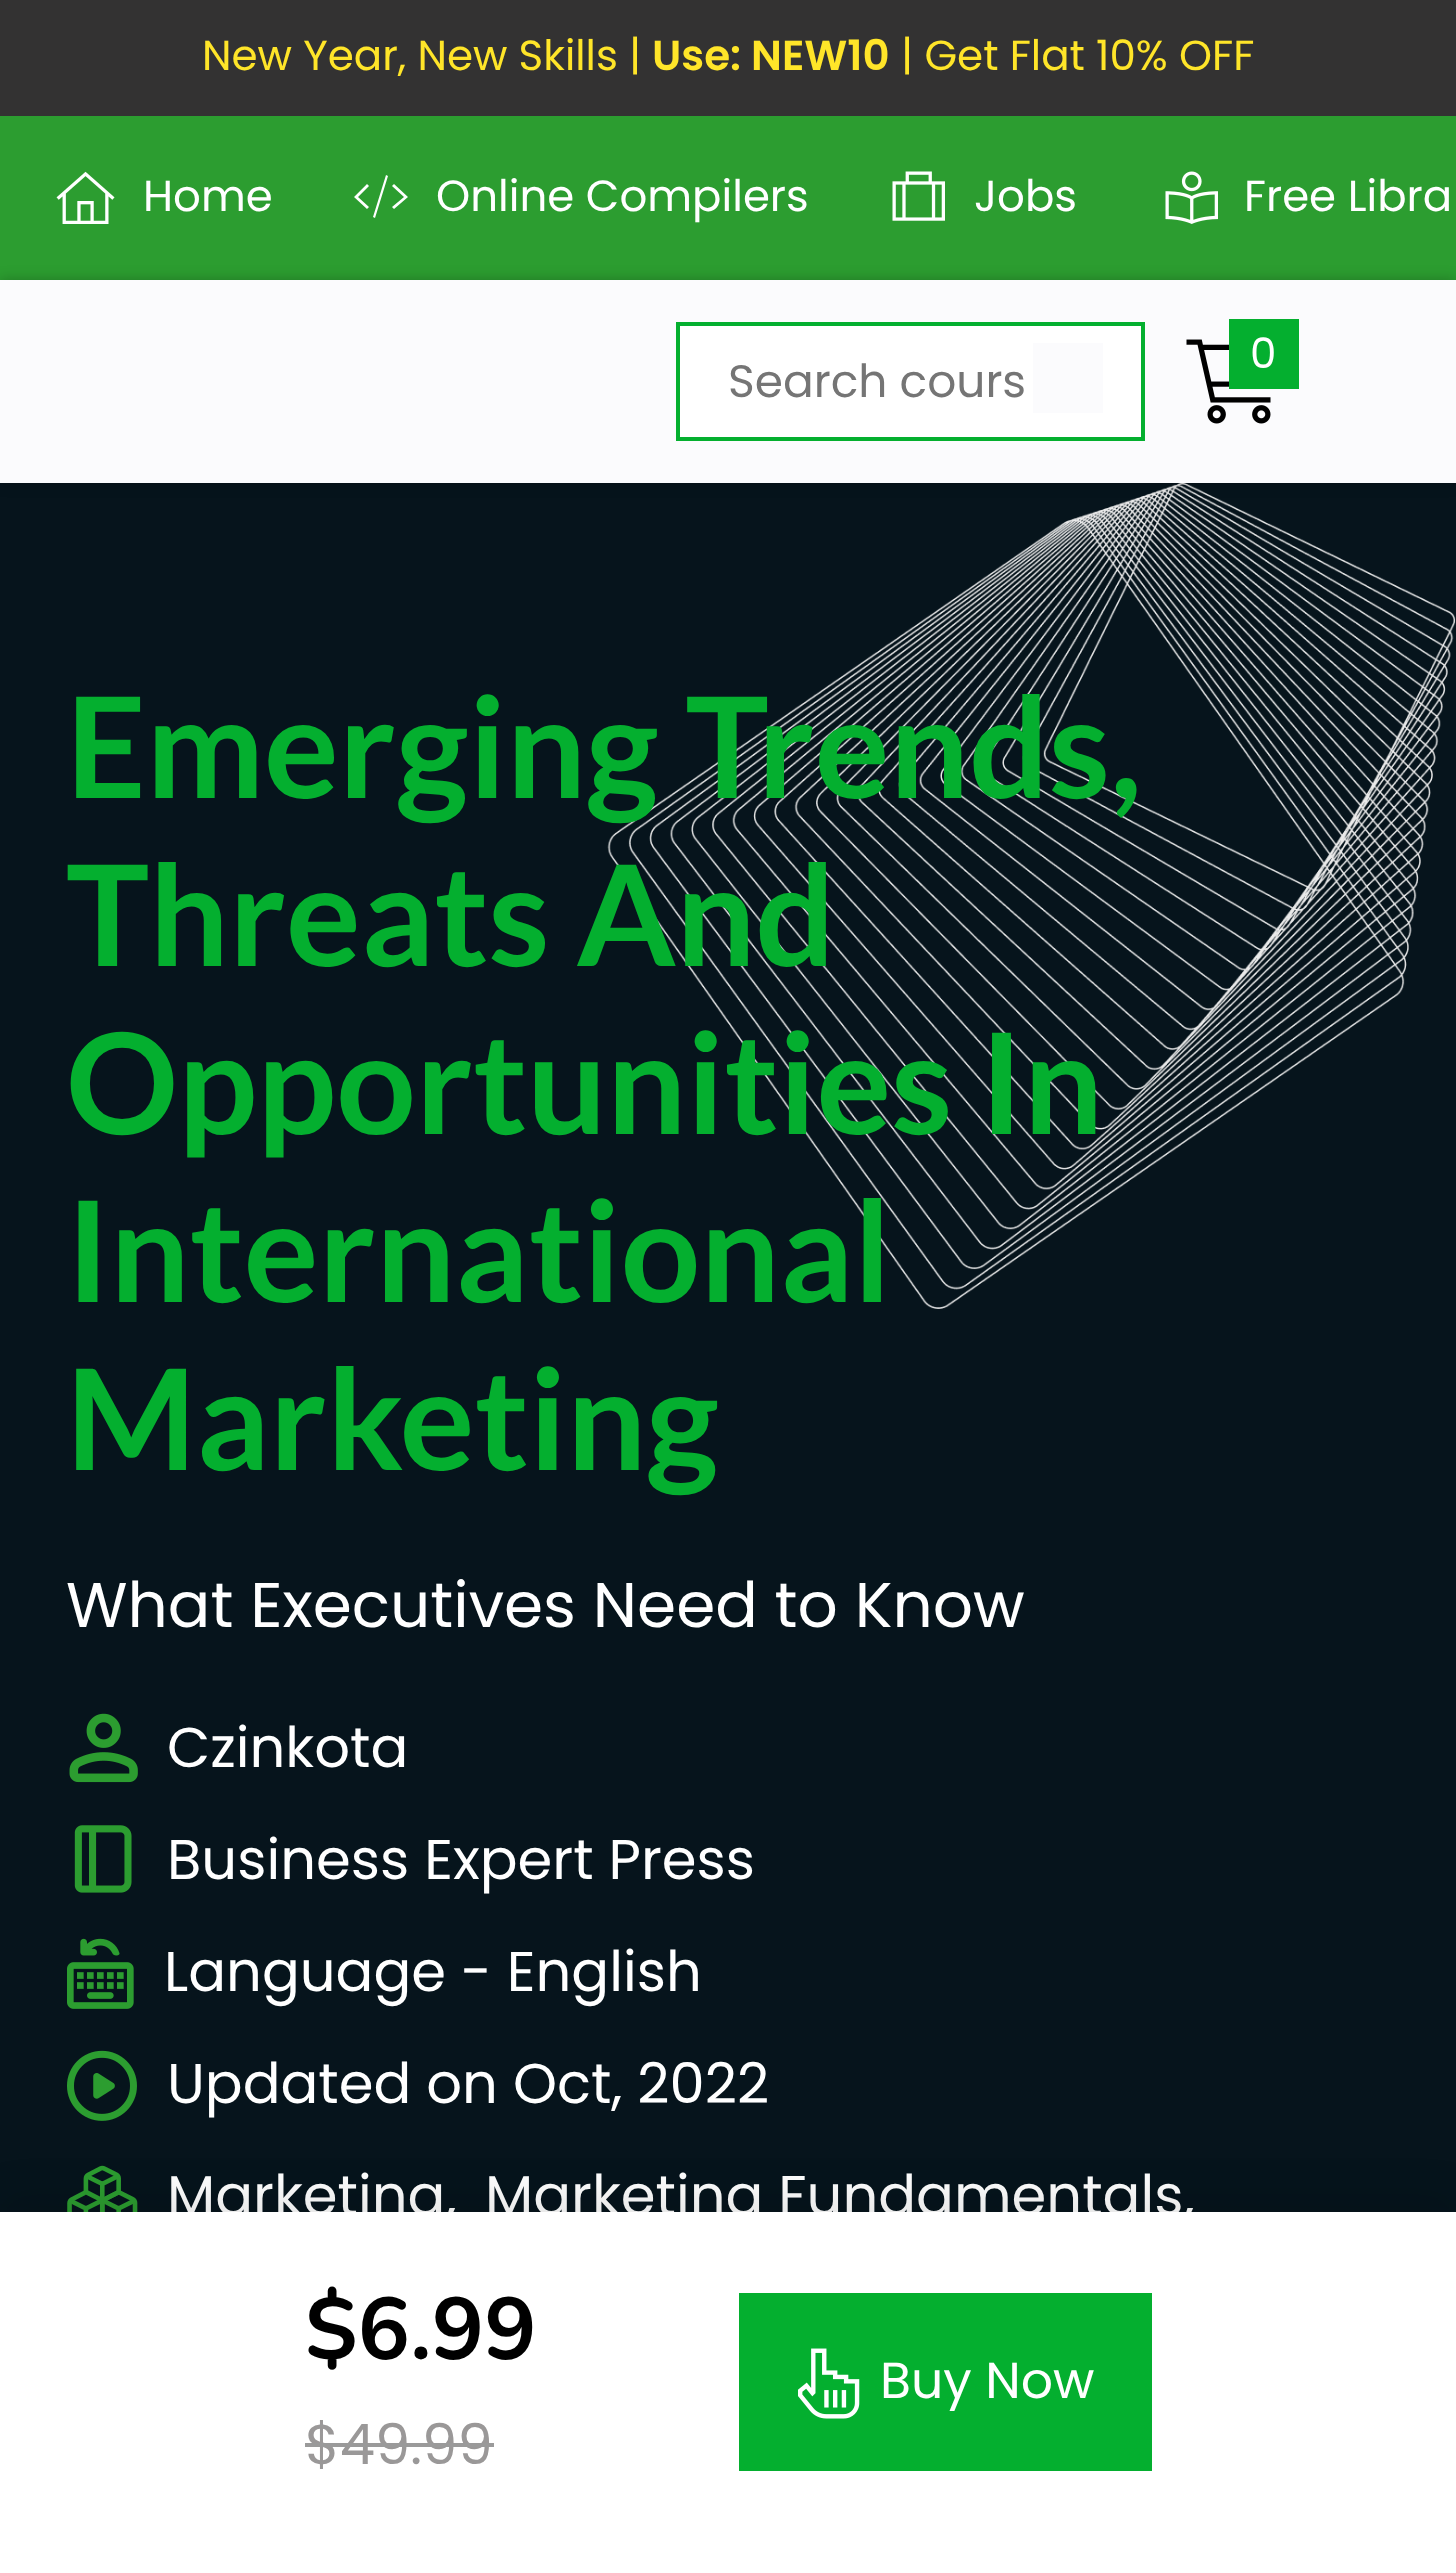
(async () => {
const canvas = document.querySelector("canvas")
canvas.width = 1456
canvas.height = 2573
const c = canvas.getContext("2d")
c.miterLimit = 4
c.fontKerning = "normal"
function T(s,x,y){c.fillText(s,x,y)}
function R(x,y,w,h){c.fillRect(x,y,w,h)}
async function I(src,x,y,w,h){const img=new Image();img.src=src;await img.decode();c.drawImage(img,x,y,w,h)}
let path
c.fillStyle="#fbfbfd"
R(0,0,1456,2573)
c.fillStyle="#333232"
R(0,0,1456,116)
c.font="42px Poppins"
c.fillStyle="#ffe529"
T("New Year, New Skills |",202,70)
c.font="600 42px Poppins"
T("Use: NEW10",652,70)
c.font="42px Poppins"
T("| Get Flat 10% OFF",901,70)
c.fillStyle="#2c9d30"
R(0,116,1456,164)
await I("1.png",56,171,59,53)
c.font="43.5px Poppins"
c.fillStyle="#fff"
T("Home",143,211)
path = new Path2D("M386 175l-13 42l2 1l13-42zm-19 9l-13 13l13 12l2-2l-11-10l11-11zm25 2l12 11l-12 10l2 2l14-12l-14-13z")
c.fill(path)
T("Online Compilers",436,211)
await I("2.png",892,171,53,50)
T("Jobs",974,211)
await I("3.png",1165,171,53,53)
T("Free Libra",1244,211)
c.fillStyle="#06141c"
R(0,483,1456,1729)
await I("5.png",607,483,849,826)
c.save()
path = new Path2D("M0 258h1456v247h-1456zm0 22h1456v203h-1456z")
c.clip(path,"evenodd")
c.fillStyle="#00000040"
c.filter="blur(7px)"
c.beginPath()
c.rect(0,280,1456,203)
c.fill()
c.filter="none"
c.restore()
await I("4.png",1186,339,85,85)
c.fillStyle="#04af2f"
R(1229,319,70,70)
c.font="42px Poppins"
c.fillStyle="#fff"
T("0",1250,368)
c.beginPath()
c.rect(678,324,465,115)
c.fill()
c.strokeStyle="#04af2f"
c.lineWidth=4
c.stroke()
c.font="45.5px Poppins"
c.fillStyle="#757575"
T("Search cours",728,397)
c.fillStyle="#fbfbfd"
R(1033,343,70,70)
c.font="bold 140px Lato"
c.fillStyle="#04af2f"
T("Emerging Trends,",66,798)
T("Threats And",66,966)
T("Opportunities In",66,1134)
T("International",66,1302)
T("Marketing",66,1470)
c.font="63px Poppins"
c.fillStyle="#fff"
T("What Executives Need to Know",66,1627)
await I("6.png",69,1713,69,70)
c.font="56px Poppins"
T("Czinkota",167,1767)
await I("7.png",74,1825,58,68)
T("Business Expert Press",167,1879)
await I("8.png",67,1938,67,71)
T("Language - English",164,1991)
await I("9.png",67,2050,70,71)
T("Updated on Oct, 2022",167,2103)
await I("10.png",67,2165,71,47)
T("Marketing,",167,2215)
T("Marketing Fundamentals,",485,2215)
c.fillStyle="#0000001a"
c.filter="blur(19px)"
c.beginPath()
c.rect(0,2195,1456,364)
c.fill()
c.filter="none"
c.fillStyle="#fff"
R(0,2212,1456,361)
c.font="bold 87.5px Nunito"
c.fillStyle="#000"
T("$6.99",305,2359)
c.font="56px Poppins"
c.fillStyle="#9a9898"
T("$49.99",305,2464)
c.fillStyle="#9a9a9a"
R(305,2443,189,4)
c.fillStyle="#04af2f"
R(739,2293,413,178)
await I("11.png",798,2348,62,71)
c.font="50.5px Poppins"
c.fillStyle="#fff"
T("Buy Now",880,2398)
})()
